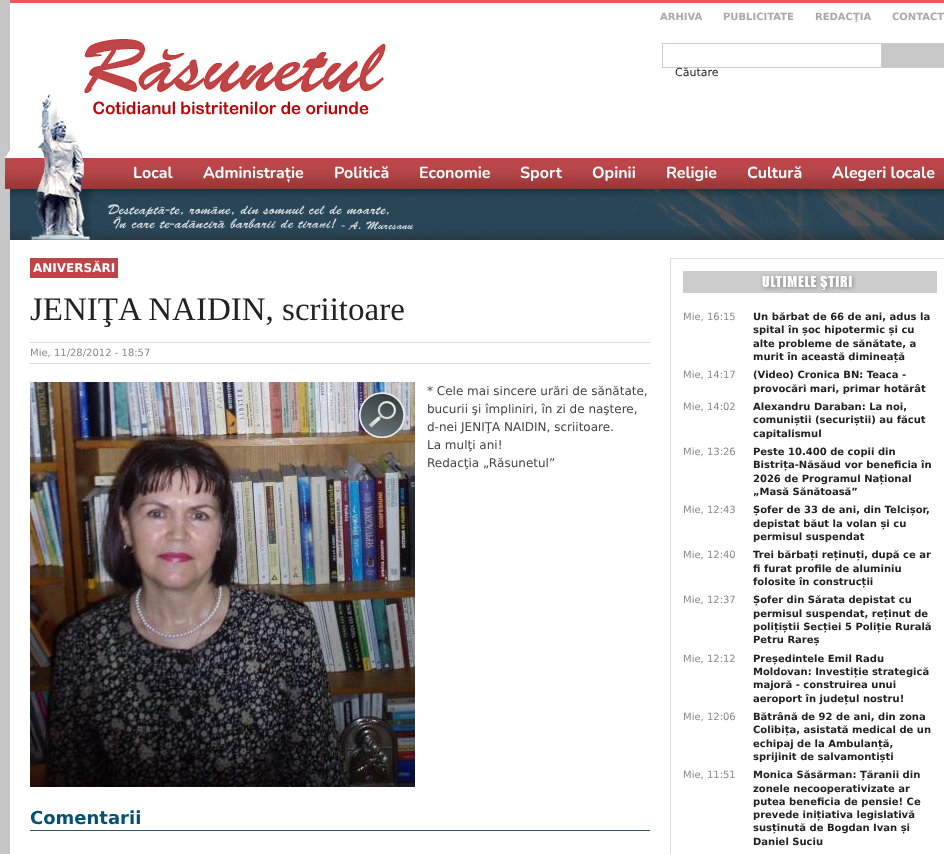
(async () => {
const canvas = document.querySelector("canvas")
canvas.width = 944
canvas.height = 854
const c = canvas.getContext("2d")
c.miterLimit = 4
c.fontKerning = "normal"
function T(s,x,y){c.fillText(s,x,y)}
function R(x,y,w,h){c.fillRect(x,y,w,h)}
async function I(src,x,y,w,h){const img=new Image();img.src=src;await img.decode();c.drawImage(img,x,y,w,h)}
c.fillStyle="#fff"
R(0,0,944,854)
await I("1.png",0,0,944,854)
await I("2.png",1,94,943,146)
c.fillStyle="#e75b5d"
R(10,0,934,3)
await I("3.png",57,37,332,80)
c.font="bold 10px DejaVu Sans"
c.fillStyle="#aaa"
T("ARHIVA",660,20)
T("PUBLICITATE",723,20)
T("REDACŢIA",815,20)
T("CONTACT",892,20)
await I("4.png",662,43,282,25)
c.font="11px DejaVu Sans"
c.fillStyle="#222"
T("Căutare",675,76)
c.font="200 16px Nunito"
c.fillStyle="#fff"
T("Local",133,178)
T("Administrație",203,178)
T("Politică",334,178)
T("Economie",419,178)
T("Sport",520,178)
T("Opinii",592,178)
T("Religie",666,178)
T("Cultură",747,178)
T("Alegeri locale",832,178)
c.fillStyle="#be4547"
R(30,258,88,20)
c.font="bold 12px DejaVu Sans"
c.fillStyle="#fff"
T("ANIVERSĂRI",33,272)
c.font="33px Liberation Serif"
c.fillStyle="#222"
T("JENIŢA NAIDIN, scriitoare",30,320)
c.fillStyle="#ddd"
R(30,342,620,1)
R(30,363,620,1)
c.font="10px DejaVu Sans"
c.fillStyle="#888"
T("Mie, 11/28/2012 - 18:57",30,356)
await I("5.png",30,382,385,405)
await I("6.png",359,392,46,46)
c.font="12px DejaVu Sans"
c.fillStyle="#444"
T("* Cele mai sincere urări de sănătate,",427,395)
T("bucurii şi împliniri, în zi de naştere,",427,413)
T("d-nei JENIŢA NAIDIN, scriitoare.",427,431)
T("La mulţi ani!",427,449)
T("Redacţia „Răsunetul”",427,467)
c.fillStyle="#385364"
R(30,830,620,1)
c.font="bold 18px DejaVu Sans"
c.fillStyle="#015270"
T("Comentarii",30,824)
c.strokeStyle="#ddd"
c.strokeRect(670.5,258.5,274,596)
await I("7.png",683,271,254,22)
c.font="10px DejaVu Sans"
c.fillStyle="#888"
T("Mie, 16:15",683,320)
c.font="bold 10px DejaVu Sans"
c.fillStyle="#222"
T("Un bărbat de 66 de ani, adus la",753,320)
T("spital în șoc hipotermic și cu",753,333)
T("alte probleme de sănătate, a",753,347)
T("murit în această dimineață",753,360)
c.font="10px DejaVu Sans"
c.fillStyle="#888"
T("Mie, 14:17",683,378)
c.font="bold 10px DejaVu Sans"
c.fillStyle="#222"
T("(Video) Cronica BN: Teaca -",753,378)
T("provocări mari, primar hotărât",753,392)
c.font="10px DejaVu Sans"
c.fillStyle="#888"
T("Mie, 14:02",683,410)
c.font="bold 10px DejaVu Sans"
c.fillStyle="#222"
T("Alexandru Daraban: La noi,",753,410)
T("comuniștii (securiștii) au făcut",753,423)
T("capitalismul",753,437)
c.font="10px DejaVu Sans"
c.fillStyle="#888"
T("Mie, 13:26",683,455)
c.font="bold 10px DejaVu Sans"
c.fillStyle="#222"
T("Peste 10.400 de copii din",753,455)
T("Bistrița-Năsăud vor beneficia în",753,468)
T("2026 de Programul Național",753,482)
T("„Masă Sănătoasă”",753,495)
c.font="10px DejaVu Sans"
c.fillStyle="#888"
T("Mie, 12:43",683,513)
c.font="bold 10px DejaVu Sans"
c.fillStyle="#222"
T("Șofer de 33 de ani, din Telcișor,",753,513)
T("depistat băut la volan și cu",753,527)
T("permisul suspendat",753,540)
c.font="10px DejaVu Sans"
c.fillStyle="#888"
T("Mie, 12:40",683,558)
c.font="bold 10px DejaVu Sans"
c.fillStyle="#222"
T("Trei bărbați reținuți, după ce ar",753,558)
T("fi furat profile de aluminiu",753,572)
T("folosite în construcții",753,585)
c.font="10px DejaVu Sans"
c.fillStyle="#888"
T("Mie, 12:37",683,603)
c.font="bold 10px DejaVu Sans"
c.fillStyle="#222"
T("Șofer din Sărata depistat cu",753,603)
T("permisul suspendat, reținut de",753,617)
T("polițiștii Secției 5 Poliție Rurală",753,630)
T("Petru Rareș",753,643)
c.font="10px DejaVu Sans"
c.fillStyle="#888"
T("Mie, 12:12",683,662)
c.font="bold 10px DejaVu Sans"
c.fillStyle="#222"
T("Președintele Emil Radu",753,662)
T("Moldovan: Investiție strategică",753,675)
T("majoră - construirea unui",753,688)
T("aeroport în județul nostru!",753,702)
c.font="10px DejaVu Sans"
c.fillStyle="#888"
T("Mie, 12:06",683,720)
c.font="bold 10px DejaVu Sans"
c.fillStyle="#222"
T("Bătrână de 92 de ani, din zona",753,720)
T("Colibița, asistată medical de un",753,733)
T("echipaj de la Ambulanță,",753,747)
T("sprijinit de salvamontiști",753,760)
c.font="10px DejaVu Sans"
c.fillStyle="#888"
T("Mie, 11:51",683,778)
c.font="bold 10px DejaVu Sans"
c.fillStyle="#222"
T("Monica Săsărman: Țăranii din",753,778)
T("zonele necooperativizate ar",753,792)
T("putea beneficia de pensie! Ce",753,805)
T("prevede inițiativa legislativă",753,818)
T("susținută de Bogdan Ivan și",753,831)
T("Daniel Suciu",753,845)
})()
